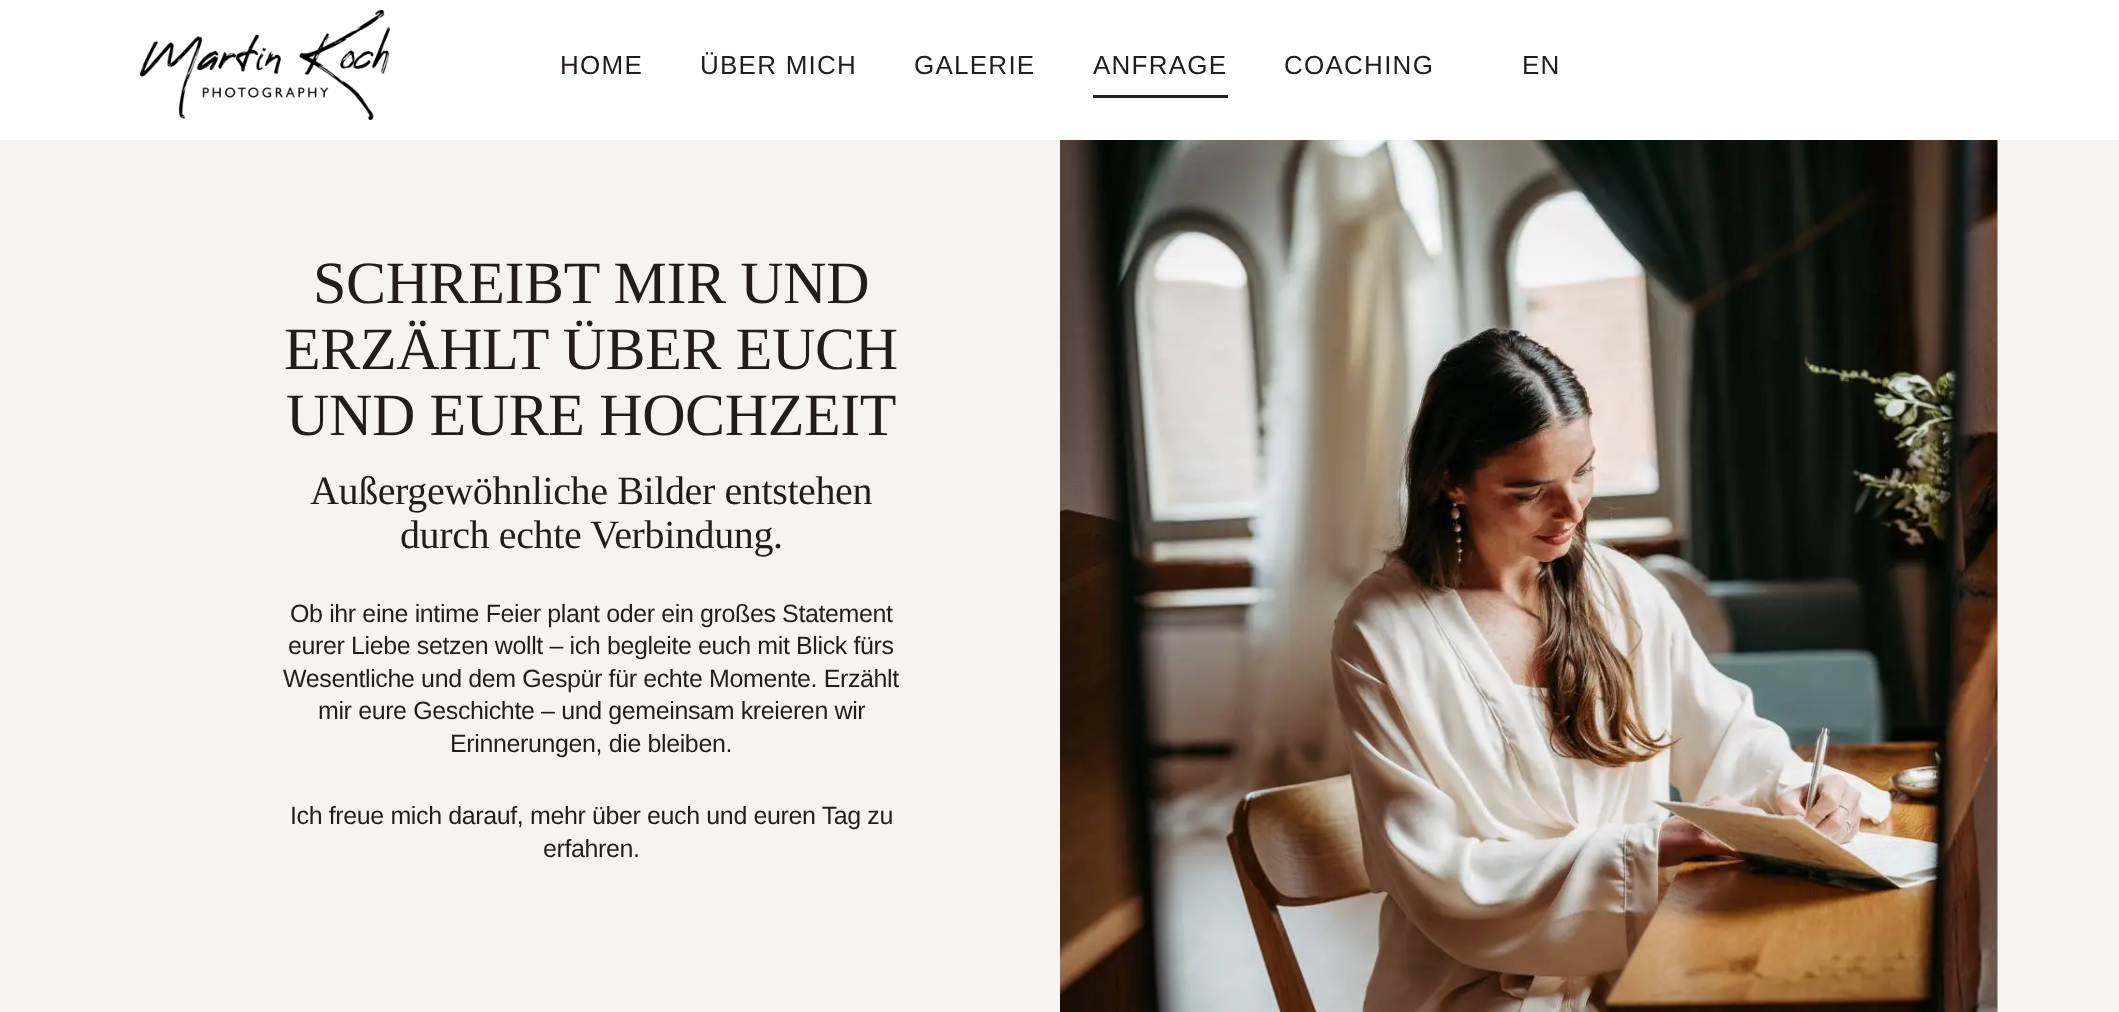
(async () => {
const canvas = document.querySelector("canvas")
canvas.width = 2119
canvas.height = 1012
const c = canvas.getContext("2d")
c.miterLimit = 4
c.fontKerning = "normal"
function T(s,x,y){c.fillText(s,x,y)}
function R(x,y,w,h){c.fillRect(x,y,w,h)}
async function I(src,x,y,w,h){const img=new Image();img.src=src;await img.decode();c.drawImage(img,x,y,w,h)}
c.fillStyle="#f6f4f0"
R(0,0,2119,1012)
c.fillStyle="#fff"
R(0,0,2119,140)
await I("1.png",140,10,250,110)
c.letterSpacing="1.25px"
c.font="26px Liberation Sans"
c.fillStyle="#231c1c"
T("HOME",560,74)
T("ÜBER MICH",700,74)
T("GALERIE",914,74)
T("ANFRAGE",1093,74)
R(1093,95,135,3)
T("COACHING",1284,74)
T("EN",1522,74)
c.letterSpacing="-0.38px"
c.font="60px Liberation Serif"
T("SCHREIBT MIR UND",313,303)
T("ERZÄHLT ÜBER EUCH",284,369)
T("UND EURE HOCHZEIT",286,435)
c.font="40px Liberation Serif"
T("Außergewöhnliche Bilder entstehen",310,504)
T("durch echte Verbindung.",400,548)
c.font="25px Liberation Sans"
T("Ob ihr eine intime Feier plant oder ein großes Statement",290,622)
T("eurer Liebe setzen wollt – ich begleite euch mit Blick fürs",288,654)
T("Wesentliche und dem Gespür für echte Momente. Erzählt",283,687)
T("mir eure Geschichte – und gemeinsam kreieren wir",318,719)
T("Erinnerungen, die bleiben.",450,752)
T("Ich freue mich darauf, mehr über euch und euren Tag zu",290,824)
T("erfahren.",543,857)
await I("2.png",1060,140,938,872)
})()
